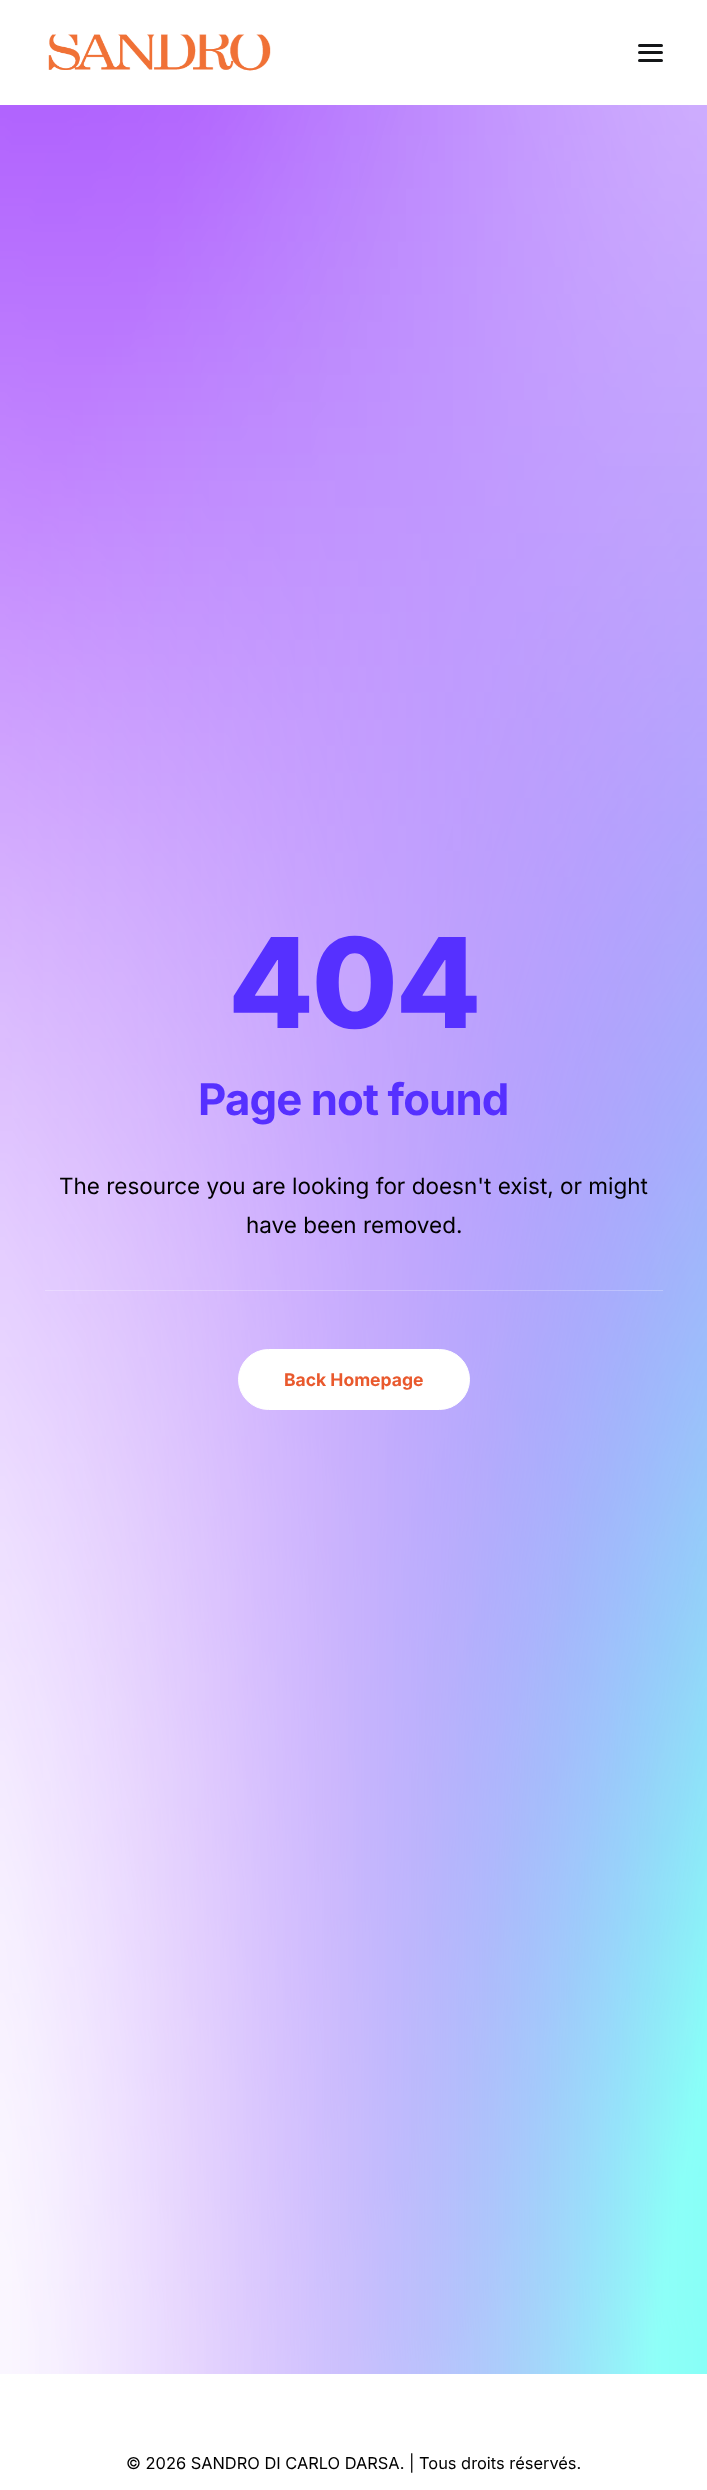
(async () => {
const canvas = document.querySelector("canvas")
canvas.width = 707
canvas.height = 2490
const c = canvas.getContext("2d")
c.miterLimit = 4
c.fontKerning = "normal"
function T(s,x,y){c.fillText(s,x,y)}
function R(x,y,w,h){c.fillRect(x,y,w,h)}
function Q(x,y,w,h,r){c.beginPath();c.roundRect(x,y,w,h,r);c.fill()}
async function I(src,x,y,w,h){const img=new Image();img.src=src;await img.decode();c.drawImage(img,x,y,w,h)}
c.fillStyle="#fff"
R(0,0,707,2490)
await I("1.png",48,34,223,37)
c.fillStyle="#141618"
Q(638,51,25,3,1.5)
Q(638,44,25,3,1.5)
Q(638,59,25,3,1.5)
await I("2.png",0,105,707,2269)
c.letterSpacing="-2.5px"
c.font="800 125px Inter"
c.fillStyle="#5630ff"
T("404",228,1028)
c.letterSpacing="-0.9px"
c.font="bold 43.75px Inter"
T("Page not found",198,1115)
c.letterSpacing="0px"
c.font="22.5px Inter"
c.fillStyle="#000"
T("The resource you are looking for doesn't exist, or might",59,1194)
T("have been removed.",246,1233)
c.fillStyle="#ffffff40"
R(45,1290,618,1)
c.fillStyle="#fff"
c.beginPath()
c.roundRect(238.5,1349.5,231,60,30)
c.fill()
c.strokeStyle="#fff"
c.stroke()
c.font="bold 17.5px Inter"
c.fillStyle="#e9592d"
T("Back Homepage",284,1386)
c.font="16.4px Inter"
c.fillStyle="#000"
T("© 2026 SANDRO DI CARLO DARSA. | Tous droits réservés.",126,2469)
})()
